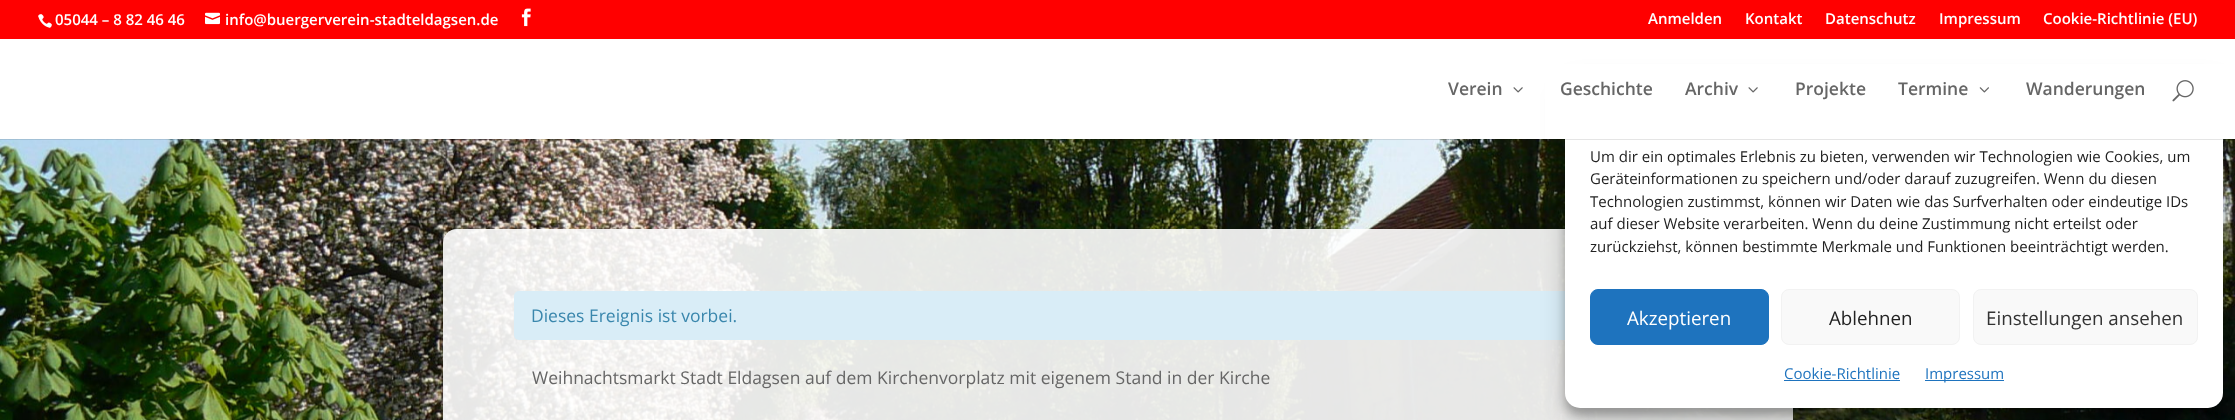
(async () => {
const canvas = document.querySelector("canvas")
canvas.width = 2235
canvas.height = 420
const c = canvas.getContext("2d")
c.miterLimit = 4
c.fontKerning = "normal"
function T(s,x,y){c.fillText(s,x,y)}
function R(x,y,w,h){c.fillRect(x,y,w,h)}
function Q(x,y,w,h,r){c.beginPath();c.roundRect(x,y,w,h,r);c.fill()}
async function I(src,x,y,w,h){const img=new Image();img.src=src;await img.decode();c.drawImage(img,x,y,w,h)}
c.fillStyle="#fff"
R(0,0,2235,420)
c.fillStyle="#f00"
R(0,0,2235,39)
await I("1.png",38,14,14,14)
c.font="600 15px Open Sans"
c.fillStyle="#fff"
T("05044 – 8 82 46 46",55,25)
await I("2.png",205,12,15,13)
T("info@buergerverein-stadteldagsen.de",225,25)
await I("3.png",521,8,10,19)
T("Anmelden",1648,24)
T("Kontakt",1745,24)
T("Datenschutz",1825,24)
T("Impressum",1939,24)
T("Cookie-Richtlinie (EU)",2043,24)
await I("7.png",0,139,2235,281)
c.fillStyle="#ffffffe6"
Q(443,229,1350,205,14)
c.fillStyle="#d9edf7"
Q(514,291,1207,49,5)
c.fillStyle="#0000003b"
c.filter="blur(4px)"
c.beginPath()
c.roundRect(1565,79,658,336,15)
c.fill()
c.filter="none"
c.fillStyle="#00000030"
c.filter="blur(12.5px)"
c.beginPath()
c.roundRect(1565,84,658,336,15)
c.fill()
c.filter="none"
c.fillStyle="#fff"
Q(1565,71,658,337,15)
c.fillStyle="#0000001a"
R(0,139,2235,1)
c.fillStyle="#fff"
R(1545,64,690,75)
c.font="600 17.5px Open Sans"
c.fillStyle="#666"
T("Verein",1448,95)
await I("4.png",1513,87,10,6)
T("Geschichte",1560,95)
T("Archiv",1685,95)
await I("4.png",1748,87,10,6)
T("Projekte",1795,95)
T("Termine",1898,95)
await I("5.png",1979,87,10,6)
T("Wanderungen",2026,95)
await I("6.png",2172,80,22,22)
c.font="17.5px Open Sans"
c.fillStyle="#3a87ad"
T("Dieses Ereignis ist vorbei.",531,322)
c.fillStyle="#666"
T("Weihnachtsmarkt Stadt Eldagsen auf dem Kirchenvorplatz mit eigenem Stand in der Kirche",532,384)
c.font="15px Open Sans"
c.fillStyle="#222"
T("Um dir ein optimales Erlebnis zu bieten, verwenden wir Technologien wie Cookies, um",1590,162)
T("Geräteinformationen zu speichern und/oder darauf zuzugreifen. Wenn du diesen",1590,184)
T("Technologien zustimmst, können wir Daten wie das Surfverhalten oder eindeutige IDs",1590,207)
T("auf dieser Website verarbeiten. Wenn du deine Zustimmung nicht erteilst oder",1590,229)
T("zurückziehst, können bestimmte Merkmale und Funktionen beeinträchtigt werden.",1590,252)
c.fillStyle="#1e73be"
c.beginPath()
c.roundRect(1590.5,289.5,178,55,7.5)
c.fill()
c.strokeStyle="#1e73be"
c.stroke()
c.font="18.75px Open Sans"
c.fillStyle="#fff"
T("Akzeptieren",1627,325)
c.fillStyle="#f9f9f9"
c.beginPath()
c.roundRect(1781.5,289.5,178,55,7.5)
c.fill()
c.strokeStyle="#f2f2f2"
c.stroke()
c.fillStyle="#222"
T("Ablehnen",1829,325)
c.fillStyle="#f9f9f9"
c.beginPath()
c.roundRect(1973.5,289.5,224,55,7.5)
c.fill()
c.stroke()
c.fillStyle="#333"
T("Einstellungen ansehen",1986,325)
c.font="15px Open Sans"
c.fillStyle="#1e73be"
T("Cookie-Richtlinie",1784,379)
R(1784,380,116,1)
R(1925,380,79,1)
T("Impressum",1925,379)
})()
